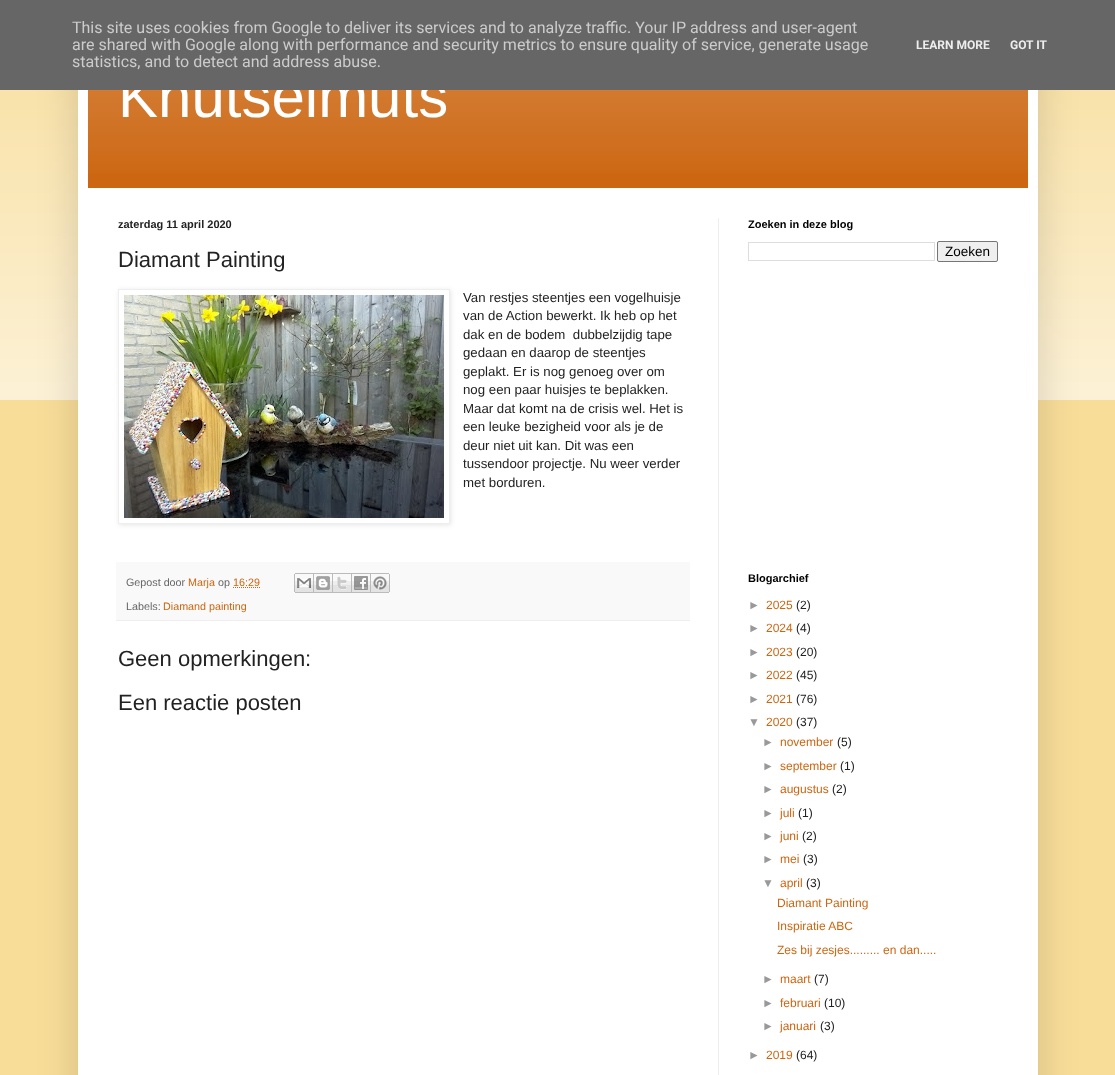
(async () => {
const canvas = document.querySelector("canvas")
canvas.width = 1115
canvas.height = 1075
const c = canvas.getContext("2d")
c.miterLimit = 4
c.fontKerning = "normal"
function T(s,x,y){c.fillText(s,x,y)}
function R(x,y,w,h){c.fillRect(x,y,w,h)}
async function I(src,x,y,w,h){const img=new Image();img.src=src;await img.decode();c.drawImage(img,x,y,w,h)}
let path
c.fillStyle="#f8dd99"
R(0,0,1115,1075)
await I("8.png",0,90,1115,310)
c.fillStyle="#00000026"
c.filter="blur(20px)"
c.beginPath()
c.rect(78,30,960,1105)
c.fill()
c.filter="none"
c.fillStyle="#fff"
R(78,90,960,985)
c.fillStyle="#c61"
R(88,90,940,98)
await I("1.png",88,90,940,83)
c.font="60px Liberation Sans"
c.fillStyle="#fff"
T("Knutselmuts",118,117)
c.fillStyle="#666"
R(0,0,1115,90)
c.font="16px Roboto"
c.fillStyle="#ccc"
T("This site uses cookies from Google to deliver its services and to analyze traffic. Your IP address and user-agent",72,33)
T("are shared with Google along with performance and security metrics to ensure quality of service, generate usage",72,50)
T("statistics, and to detect and address abuse.",72,67)
c.font="bold 12px Roboto"
c.fillStyle="#eee"
T("LEARN MORE",916,49)
T("GOT IT",1010,49)
R(718,218,1,857)
c.font="bold 11px Liberation Sans"
c.fillStyle="#222"
T("zaterdag 11 april 2020",118,228)
c.font="22px Liberation Sans"
T("Diamant Painting",118,267)
c.save()
path = new Path2D("M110 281h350v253h-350zm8 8h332v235h-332z")
c.clip(path,"evenodd")
c.fillStyle="#0000001a"
c.filter="blur(2.5px)"
c.beginPath()
c.rect(119,290,332,235)
c.fill()
c.filter="none"
c.restore()
c.strokeStyle="#eee"
c.strokeRect(118.5,289.5,331,234)
await I("2.png",124,295,320,223)
c.font="13.25px Liberation Sans"
T("Van restjes steentjes een vogelhuisje",463,302)
T("van de Action bewerkt. Ik heb op het",463,320)
T("dak en de bodem  dubbelzijdig tape",463,339)
T("gedaan en daarop de steentjes",463,357)
T("geplakt. Er is nog genoeg over om",463,376)
T("nog een paar huisjes te beplakken.",463,394)
T("Maar dat komt na de crisis wel. Het is",463,413)
T("een leuke bezigheid voor als je de",463,431)
T("deur niet uit kan. Dit was een",463,450)
T("tussendoor projectje. Nu weer verder",463,468)
T("met borduren.",463,487)
c.fillStyle="#f9f9f9"
R(116,562,574,58)
c.fillStyle="#eee"
R(116,620,574,1)
c.font="10.75px Liberation Sans"
c.fillStyle="#666"
T("Gepost door",126,586)
c.fillStyle="#c61"
T("Marja",188,586)
c.fillStyle="#666"
T("op",218,586)
path = new Path2D("M233 587.5h27")
c.strokeStyle="#c61"
c.setLineDash([1,1])
c.stroke(path)
c.fillStyle="#c61"
T("16:29",233,586)
await I("3.png",294,573,20,20)
await I("4.png",314,573,19,20)
await I("5.png",333,573,19,20)
await I("6.png",352,573,19,20)
await I("7.png",371,573,19,20)
c.fillStyle="#666"
T("Labels:",126,610)
c.fillStyle="#c61"
T("Diamand painting",163,610)
c.font="22px Liberation Sans"
c.fillStyle="#222"
T("Geen opmerkingen:",118,666)
T("Een reactie posten",118,710)
c.font="bold 11px Liberation Sans"
c.fillStyle="#000"
T("Zoeken in deze blog",748,228)
c.strokeStyle="#ddd"
c.setLineDash([])
c.strokeRect(748.5,242.5,186,18)
c.fillStyle="#efefef"
c.beginPath()
c.roundRect(937.5,241.5,60,20,1.5)
c.fill()
c.strokeStyle="#767676"
c.stroke()
c.font="13.5px Liberation Sans"
c.fillStyle="#000"
T("Zoeken",945,256)
c.font="bold 11px Liberation Sans"
T("Blogarchief",748,582)
c.font="12px Liberation Sans"
c.fillStyle="#999"
T("►",748,609)
c.fillStyle="#c61"
T("2025",766,609)
c.fillStyle="#222"
T("(2)",796,609)
c.fillStyle="#999"
T("►",748,632)
c.fillStyle="#c61"
T("2024",766,632)
c.fillStyle="#222"
T("(4)",796,632)
c.fillStyle="#999"
T("►",748,656)
c.fillStyle="#c61"
T("2023",766,656)
c.fillStyle="#222"
T("(20)",796,656)
c.fillStyle="#999"
T("►",748,679)
c.fillStyle="#c61"
T("2022",766,679)
c.fillStyle="#222"
T("(45)",796,679)
c.fillStyle="#999"
T("►",748,703)
c.fillStyle="#c61"
T("2021",766,703)
c.fillStyle="#222"
T("(76)",796,703)
c.fillStyle="#999"
T("▼",748,726)
c.fillStyle="#c61"
T("2020",766,726)
c.fillStyle="#222"
T("(37)",796,726)
c.fillStyle="#999"
T("►",762,746)
c.fillStyle="#c61"
T("november",780,746)
c.fillStyle="#222"
T("(5)",837,746)
c.fillStyle="#999"
T("►",762,770)
c.fillStyle="#c61"
T("september",780,770)
c.fillStyle="#222"
T("(1)",840,770)
c.fillStyle="#999"
T("►",762,793)
c.fillStyle="#c61"
T("augustus",780,793)
c.fillStyle="#222"
T("(2)",832,793)
c.fillStyle="#999"
T("►",762,817)
c.fillStyle="#c61"
T("juli",780,817)
c.fillStyle="#222"
T("(1)",798,817)
c.fillStyle="#999"
T("►",762,840)
c.fillStyle="#c61"
T("juni",780,840)
c.fillStyle="#222"
T("(2)",802,840)
c.fillStyle="#999"
T("►",762,863)
c.fillStyle="#c61"
T("mei",780,863)
c.fillStyle="#222"
T("(3)",803,863)
c.fillStyle="#999"
T("▼",762,887)
c.fillStyle="#c61"
T("april",780,887)
c.fillStyle="#222"
T("(3)",806,887)
c.fillStyle="#c61"
T("Diamant Painting",777,907)
T("Inspiratie ABC",777,930)
T("Zes bij zesjes......... en dan.....",777,954)
c.fillStyle="#999"
T("►",762,983)
c.fillStyle="#c61"
T("maart",780,983)
c.fillStyle="#222"
T("(7)",814,983)
c.fillStyle="#999"
T("►",762,1007)
c.fillStyle="#c61"
T("februari",780,1007)
c.fillStyle="#222"
T("(10)",824,1007)
c.fillStyle="#999"
T("►",762,1030)
c.fillStyle="#c61"
T("januari",780,1030)
c.fillStyle="#222"
T("(3)",820,1030)
c.fillStyle="#999"
T("►",748,1059)
c.fillStyle="#c61"
T("2019",766,1059)
c.fillStyle="#222"
T("(64)",796,1059)
})()
